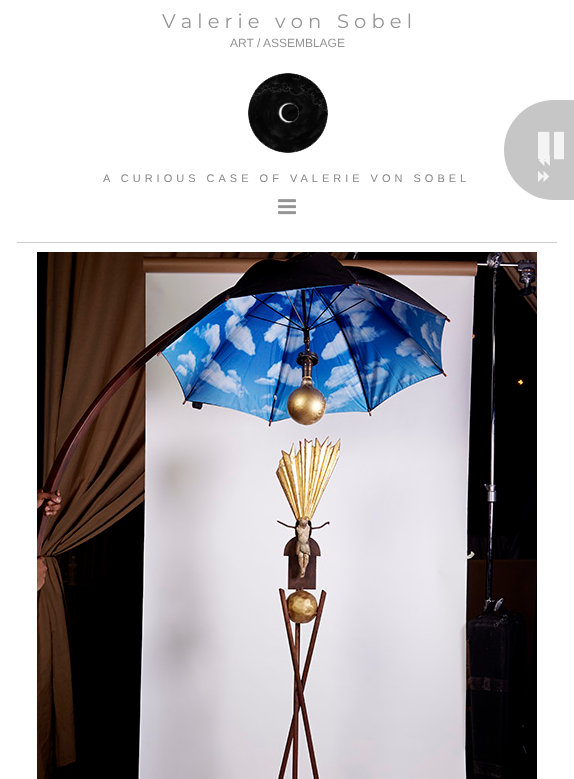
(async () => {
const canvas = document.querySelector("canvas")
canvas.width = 574
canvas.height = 779
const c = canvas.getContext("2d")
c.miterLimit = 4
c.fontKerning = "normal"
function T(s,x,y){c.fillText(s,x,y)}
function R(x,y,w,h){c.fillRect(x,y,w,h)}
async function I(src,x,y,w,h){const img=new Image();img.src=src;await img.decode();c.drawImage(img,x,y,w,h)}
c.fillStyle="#fff"
R(0,0,574,779)
c.fillStyle="#ccc"
R(17,242,540,1)
c.font="19.5px Montserrat"
c.fillStyle="#959595"
T("V a l e r i e",162,28)
T("v o n",275,28)
T("S o b e l",337,28)
c.font="12px Liberation Sans"
T("ART / ASSEMBLAGE",230,47)
await I("1.png",248,73,80,80)
c.letterSpacing="4px"
c.font="11px Liberation Sans"
c.fillStyle="#878788"
T("A CURIOUS CASE OF VALERIE VON SOBEL",103,182)
await I("2.png",278,199,18,16)
await I("3.png",37,252,500,527)
c.fillStyle="#c6c6c6"
c.beginPath()
c.roundRect(504,100,70,100,[50,0,0,50])
c.fill()
await I("4.png",538,131,26,29)
await I("5.png",539,155,11,11)
await I("6.png",538,171,11,11)
})()
